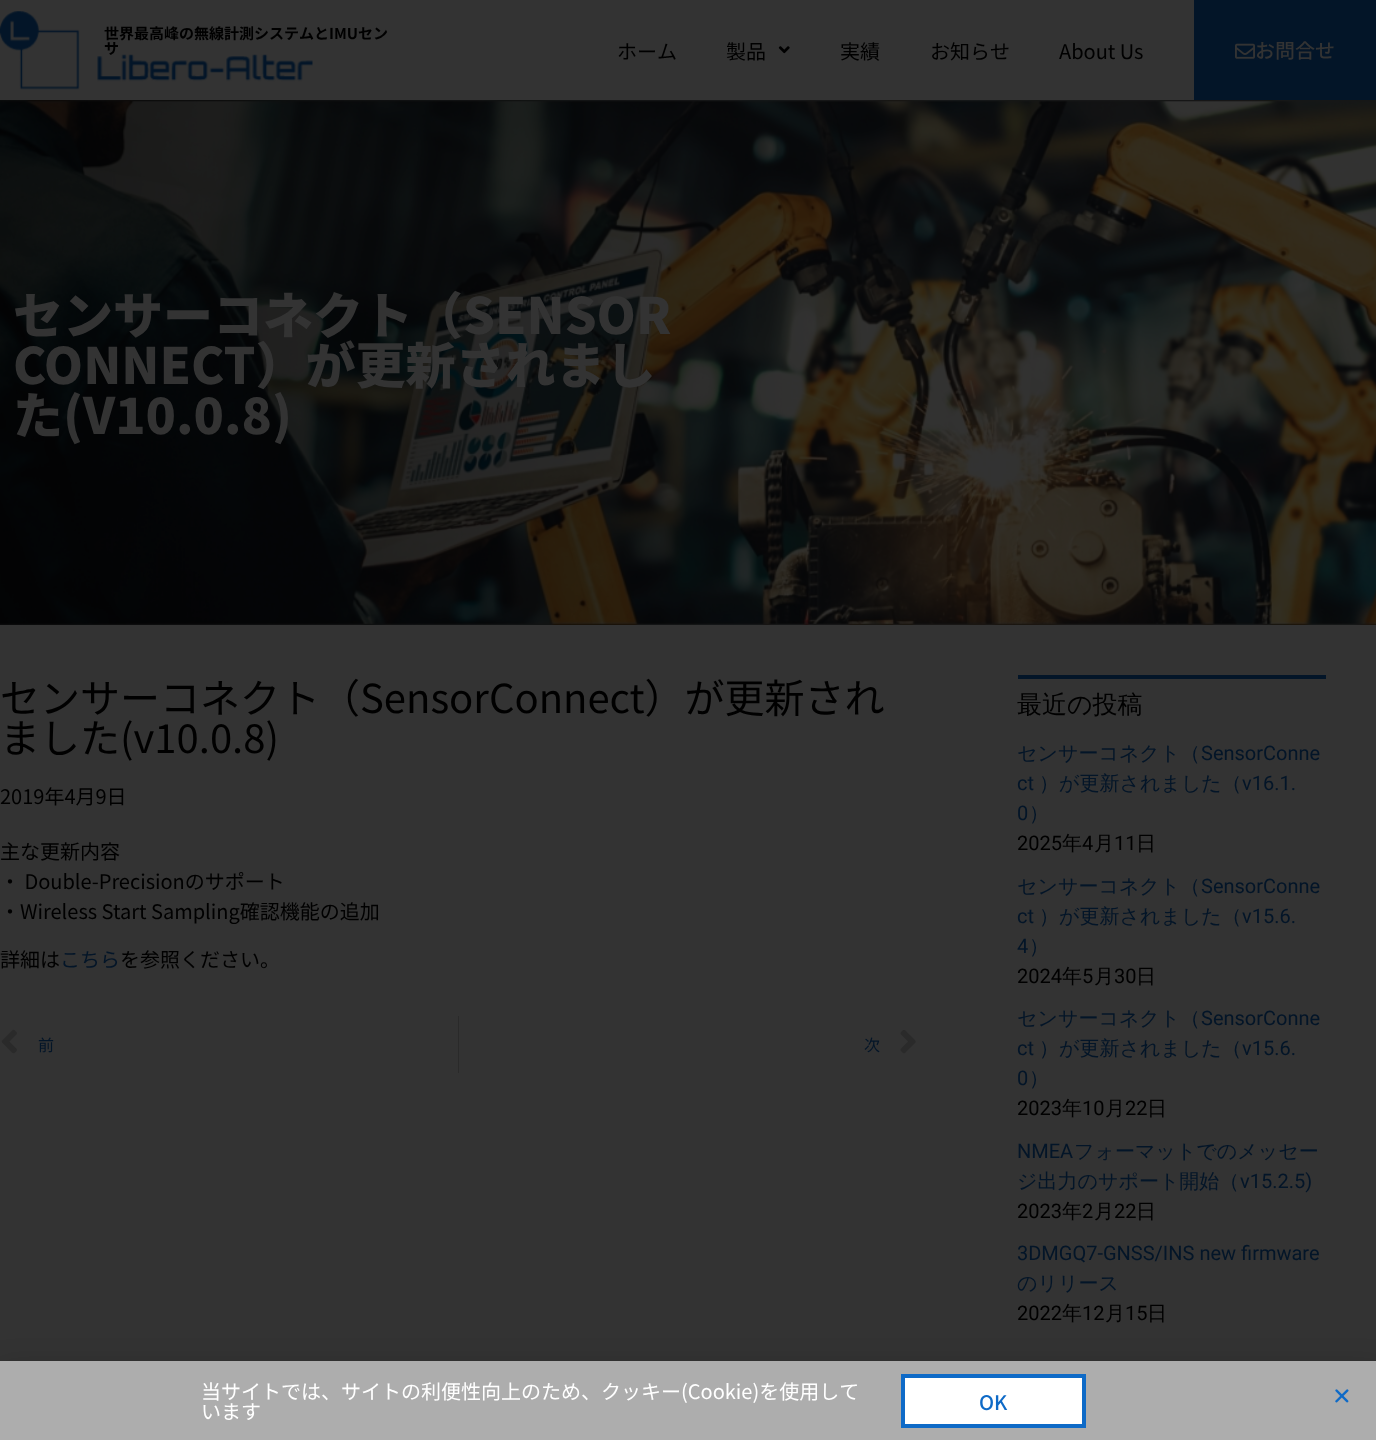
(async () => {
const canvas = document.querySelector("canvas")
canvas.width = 1376
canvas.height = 1440
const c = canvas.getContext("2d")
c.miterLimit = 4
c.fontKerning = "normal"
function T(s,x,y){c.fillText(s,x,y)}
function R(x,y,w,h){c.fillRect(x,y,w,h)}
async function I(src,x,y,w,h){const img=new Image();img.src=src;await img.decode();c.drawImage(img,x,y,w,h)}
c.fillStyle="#333"
R(0,0,1376,1440)
await I("1.png",0,11,313,79)
c.font="bold 15px Noto Sans JP"
c.fillStyle="#000"
T("世界最高峰の無線計測システムとIMUセン",104,39)
T("サ",104,54)
c.font="20px Noto Sans JP"
T("ホーム",617,59)
T("製品",726,59)
await I("2.png",778,46,12,8)
T("実績",840,59)
T("お知らせ",930,59)
T("About Us",1059,59)
c.fillStyle="#031528"
R(1194,0,182,100)
await I("3.png",1235,43,20,16)
c.font="500 20px Noto Sans JP"
c.fillStyle="#333"
T("お問合せ",1255,58)
await I("4.png",0,100,1376,525)
c.font="900 50px Noto Sans JP"
T("センサーコネクト（SENSOR",13,334)
T("CONNECT）が更新されまし",13,384)
T("た(V10.0.8)",13,434)
c.font="40px Noto Sans JP"
c.fillStyle="#000"
T("センサーコネクト（SensorConnect）が更新され",0,713)
T("ました(v10.0.8)",0,753)
c.font="20px Noto Sans JP"
T("2019年4月9日",0,804)
T("主な更新内容",0,859)
T("・ Double-Precisionのサポート",0,889)
T("・Wireless Start Sampling確認機能の追加",0,919)
T("詳細は",0,967)
c.fillStyle="#031528"
T("こちら",60,967)
c.fillStyle="#000"
T("を参照ください。",120,967)
await I("5.png",1,1029,16,25)
c.font="16px Noto Sans JP"
c.fillStyle="#031528"
T("前",38,1051)
c.fillStyle="#2a2a2a"
R(458,1016,1,57)
c.fillStyle="#031528"
T("次",864,1051)
await I("6.png",900,1030,16,24)
R(1018,675,308,4)
c.font="500 25px WenQuanYi Zen Hei"
c.fillStyle="#000"
T("最近の投稿",1017,713)
c.font="500 20px WenQuanYi Zen Hei"
c.fillStyle="#031528"
T("センサーコネクト（",1017,760)
c.font="20px Roboto"
T("SensorConne",1201,760)
T("ct",1017,790)
c.font="500 20px WenQuanYi Zen Hei"
T("）が更新されました（",1039,790)
c.font="20px Roboto"
T("v16.1.",1242,790)
T("0",1017,820)
c.font="500 20px WenQuanYi Zen Hei"
T("）",1029,820)
c.font="20px Roboto"
c.fillStyle="#000"
T("2025",1017,850)
c.font="500 20px WenQuanYi Zen Hei"
T("年",1062,850)
c.font="20px Roboto"
T("4",1082,850)
c.font="500 20px WenQuanYi Zen Hei"
T("月",1094,850)
c.font="20px Roboto"
T("11",1114,850)
c.font="500 20px WenQuanYi Zen Hei"
T("日",1136,850)
c.fillStyle="#031528"
T("センサーコネクト（",1017,893)
c.font="20px Roboto"
T("SensorConne",1201,893)
T("ct",1017,923)
c.font="500 20px WenQuanYi Zen Hei"
T("）が更新されました（",1039,923)
c.font="20px Roboto"
T("v15.6.",1242,923)
T("4",1017,953)
c.font="500 20px WenQuanYi Zen Hei"
T("）",1029,953)
c.font="20px Roboto"
c.fillStyle="#000"
T("2024",1017,983)
c.font="500 20px WenQuanYi Zen Hei"
T("年",1062,983)
c.font="20px Roboto"
T("5",1082,983)
c.font="500 20px WenQuanYi Zen Hei"
T("月",1094,983)
c.font="20px Roboto"
T("30",1114,983)
c.font="500 20px WenQuanYi Zen Hei"
T("日",1136,983)
c.fillStyle="#031528"
T("センサーコネクト（",1017,1025)
c.font="20px Roboto"
T("SensorConne",1201,1025)
T("ct",1017,1055)
c.font="500 20px WenQuanYi Zen Hei"
T("）が更新されました（",1039,1055)
c.font="20px Roboto"
T("v15.6.",1242,1055)
T("0",1017,1085)
c.font="500 20px WenQuanYi Zen Hei"
T("）",1029,1085)
c.font="20px Roboto"
c.fillStyle="#000"
T("2023",1017,1115)
c.font="500 20px WenQuanYi Zen Hei"
T("年",1062,1115)
c.font="20px Roboto"
T("10",1082,1115)
c.font="500 20px WenQuanYi Zen Hei"
T("月",1105,1115)
c.font="20px Roboto"
T("22",1125,1115)
c.font="500 20px WenQuanYi Zen Hei"
T("日",1147,1115)
c.font="20px Roboto"
c.fillStyle="#031528"
T("NMEA",1017,1158)
c.font="500 20px WenQuanYi Zen Hei"
T("フォーマットでのメッセー",1074,1158)
T("ジ出力のサポート開始（",1017,1188)
c.font="20px Roboto"
T("v15.2.5)",1240,1188)
c.fillStyle="#000"
T("2023",1017,1218)
c.font="500 20px WenQuanYi Zen Hei"
T("年",1062,1218)
c.font="20px Roboto"
T("2",1082,1218)
c.font="500 20px WenQuanYi Zen Hei"
T("月",1094,1218)
c.font="20px Roboto"
T("22",1114,1218)
c.font="500 20px WenQuanYi Zen Hei"
T("日",1136,1218)
c.font="20px Roboto"
c.fillStyle="#031528"
T("3DMGQ7-GNSS/INS new firmware",1017,1260)
c.font="500 20px WenQuanYi Zen Hei"
T("のリリース",1017,1290)
c.font="20px Roboto"
c.fillStyle="#000"
T("2022",1017,1320)
c.font="500 20px WenQuanYi Zen Hei"
T("年",1062,1320)
c.font="20px Roboto"
T("12",1082,1320)
c.font="500 20px WenQuanYi Zen Hei"
T("月",1105,1320)
c.font="20px Roboto"
T("15",1125,1320)
c.font="500 20px WenQuanYi Zen Hei"
T("日",1147,1320)
c.fillStyle="#00000033"
c.filter="blur(14.5px)"
c.beginPath()
c.rect(-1,1368,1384,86)
c.fill()
c.filter="none"
c.fillStyle="#adadad"
R(0,1361,1376,79)
c.font="20px Noto Sans JP"
c.fillStyle="#fff"
T("当サイトでは、サイトの利便性向上のため、クッキー(Cookie)を使用して",201,1399)
T("います",201,1419)
c.beginPath()
c.rect(903,1376,181,50)
c.fill()
c.strokeStyle="#0e6ac7"
c.lineWidth=4
c.stroke()
c.font="500 20px Noto Sans JP"
c.fillStyle="#0e6ac7"
T("OK",979,1410)
await I("7.png",1335,1389,14,14)
})()
